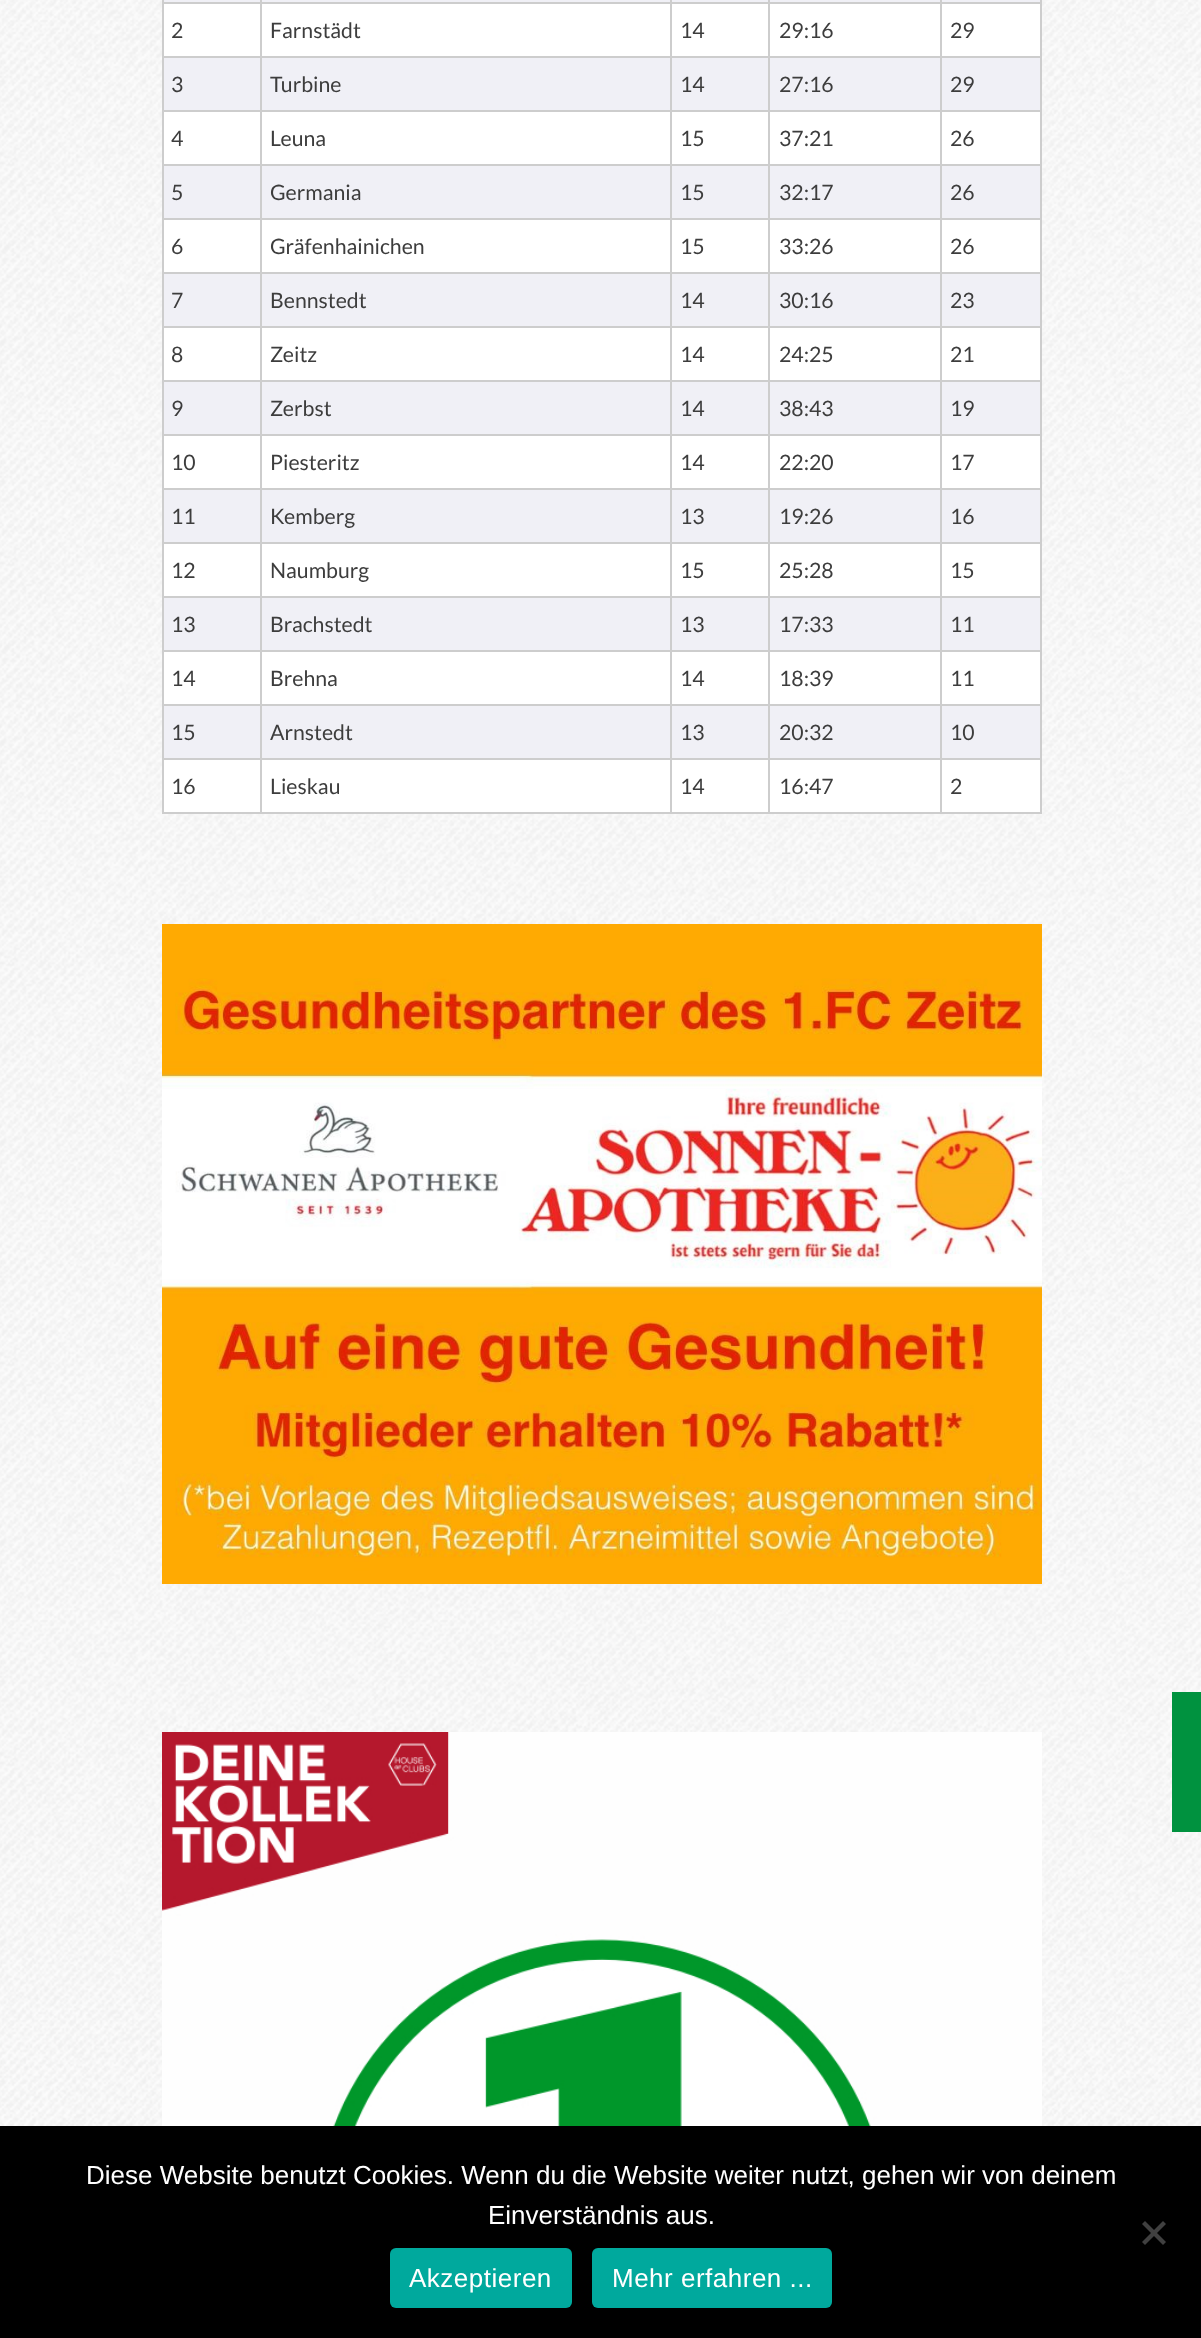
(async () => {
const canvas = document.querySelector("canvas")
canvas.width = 1201
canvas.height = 2338
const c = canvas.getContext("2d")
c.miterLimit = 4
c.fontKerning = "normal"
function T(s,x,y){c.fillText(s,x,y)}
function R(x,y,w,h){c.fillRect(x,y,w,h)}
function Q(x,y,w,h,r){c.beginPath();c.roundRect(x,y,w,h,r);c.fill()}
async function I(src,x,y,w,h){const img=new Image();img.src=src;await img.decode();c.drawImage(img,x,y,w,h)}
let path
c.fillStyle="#fff"
R(0,0,1201,2338)
await I("1.png",0,0,1201,2126)
c.fillStyle="#cdcdcd"
R(162,0,880,814)
c.fillStyle="#f0f0f6"
R(164,0,96,2)
R(262,0,408,2)
R(672,0,96,2)
R(770,0,170,2)
R(942,0,98,2)
c.fillStyle="#fff"
R(164,4,96,52)
c.font="21.25px Lato"
c.fillStyle="#3d3d3d"
T("2",171,38)
c.fillStyle="#fff"
R(262,4,408,52)
c.fillStyle="#3d3d3d"
T("Farnstädt",270,38)
c.fillStyle="#fff"
R(672,4,96,52)
c.fillStyle="#3d3d3d"
T("14",680,38)
c.fillStyle="#fff"
R(770,4,170,52)
c.fillStyle="#3d3d3d"
T("29:16",779,38)
c.fillStyle="#fff"
R(942,4,98,52)
c.fillStyle="#3d3d3d"
T("29",950,38)
c.fillStyle="#f0f0f6"
R(164,58,96,52)
c.fillStyle="#3d3d3d"
T("3",171,92)
c.fillStyle="#f0f0f6"
R(262,58,408,52)
c.fillStyle="#3d3d3d"
T("Turbine",270,92)
c.fillStyle="#f0f0f6"
R(672,58,96,52)
c.fillStyle="#3d3d3d"
T("14",680,92)
c.fillStyle="#f0f0f6"
R(770,58,170,52)
c.fillStyle="#3d3d3d"
T("27:16",779,92)
c.fillStyle="#f0f0f6"
R(942,58,98,52)
c.fillStyle="#3d3d3d"
T("29",950,92)
c.fillStyle="#fff"
R(164,112,96,52)
c.fillStyle="#3d3d3d"
T("4",171,146)
c.fillStyle="#fff"
R(262,112,408,52)
c.fillStyle="#3d3d3d"
T("Leuna",270,146)
c.fillStyle="#fff"
R(672,112,96,52)
c.fillStyle="#3d3d3d"
T("15",680,146)
c.fillStyle="#fff"
R(770,112,170,52)
c.fillStyle="#3d3d3d"
T("37:21",779,146)
c.fillStyle="#fff"
R(942,112,98,52)
c.fillStyle="#3d3d3d"
T("26",950,146)
c.fillStyle="#f0f0f6"
R(164,166,96,52)
c.fillStyle="#3d3d3d"
T("5",171,200)
c.fillStyle="#f0f0f6"
R(262,166,408,52)
c.fillStyle="#3d3d3d"
T("Germania",270,200)
c.fillStyle="#f0f0f6"
R(672,166,96,52)
c.fillStyle="#3d3d3d"
T("15",680,200)
c.fillStyle="#f0f0f6"
R(770,166,170,52)
c.fillStyle="#3d3d3d"
T("32:17",779,200)
c.fillStyle="#f0f0f6"
R(942,166,98,52)
c.fillStyle="#3d3d3d"
T("26",950,200)
c.fillStyle="#fff"
R(164,220,96,52)
c.fillStyle="#3d3d3d"
T("6",171,254)
c.fillStyle="#fff"
R(262,220,408,52)
c.fillStyle="#3d3d3d"
T("Gräfenhainichen",270,254)
c.fillStyle="#fff"
R(672,220,96,52)
c.fillStyle="#3d3d3d"
T("15",680,254)
c.fillStyle="#fff"
R(770,220,170,52)
c.fillStyle="#3d3d3d"
T("33:26",779,254)
c.fillStyle="#fff"
R(942,220,98,52)
c.fillStyle="#3d3d3d"
T("26",950,254)
c.fillStyle="#f0f0f6"
R(164,274,96,52)
c.fillStyle="#3d3d3d"
T("7",171,308)
c.fillStyle="#f0f0f6"
R(262,274,408,52)
c.fillStyle="#3d3d3d"
T("Bennstedt",270,308)
c.fillStyle="#f0f0f6"
R(672,274,96,52)
c.fillStyle="#3d3d3d"
T("14",680,308)
c.fillStyle="#f0f0f6"
R(770,274,170,52)
c.fillStyle="#3d3d3d"
T("30:16",779,308)
c.fillStyle="#f0f0f6"
R(942,274,98,52)
c.fillStyle="#3d3d3d"
T("23",950,308)
c.fillStyle="#fff"
R(164,328,96,52)
c.fillStyle="#3d3d3d"
T("8",171,362)
c.fillStyle="#fff"
R(262,328,408,52)
c.fillStyle="#3d3d3d"
T("Zeitz",270,362)
c.fillStyle="#fff"
R(672,328,96,52)
c.fillStyle="#3d3d3d"
T("14",680,362)
c.fillStyle="#fff"
R(770,328,170,52)
c.fillStyle="#3d3d3d"
T("24:25",779,362)
c.fillStyle="#fff"
R(942,328,98,52)
c.fillStyle="#3d3d3d"
T("21",950,362)
c.fillStyle="#f0f0f6"
R(164,382,96,52)
c.fillStyle="#3d3d3d"
T("9",171,416)
c.fillStyle="#f0f0f6"
R(262,382,408,52)
c.fillStyle="#3d3d3d"
T("Zerbst",270,416)
c.fillStyle="#f0f0f6"
R(672,382,96,52)
c.fillStyle="#3d3d3d"
T("14",680,416)
c.fillStyle="#f0f0f6"
R(770,382,170,52)
c.fillStyle="#3d3d3d"
T("38:43",779,416)
c.fillStyle="#f0f0f6"
R(942,382,98,52)
c.fillStyle="#3d3d3d"
T("19",950,416)
c.fillStyle="#fff"
R(164,436,96,52)
c.fillStyle="#3d3d3d"
T("10",171,470)
c.fillStyle="#fff"
R(262,436,408,52)
c.fillStyle="#3d3d3d"
T("Piesteritz",270,470)
c.fillStyle="#fff"
R(672,436,96,52)
c.fillStyle="#3d3d3d"
T("14",680,470)
c.fillStyle="#fff"
R(770,436,170,52)
c.fillStyle="#3d3d3d"
T("22:20",779,470)
c.fillStyle="#fff"
R(942,436,98,52)
c.fillStyle="#3d3d3d"
T("17",950,470)
c.fillStyle="#f0f0f6"
R(164,490,96,52)
c.fillStyle="#3d3d3d"
T("11",171,524)
c.fillStyle="#f0f0f6"
R(262,490,408,52)
c.fillStyle="#3d3d3d"
T("Kemberg",270,524)
c.fillStyle="#f0f0f6"
R(672,490,96,52)
c.fillStyle="#3d3d3d"
T("13",680,524)
c.fillStyle="#f0f0f6"
R(770,490,170,52)
c.fillStyle="#3d3d3d"
T("19:26",779,524)
c.fillStyle="#f0f0f6"
R(942,490,98,52)
c.fillStyle="#3d3d3d"
T("16",950,524)
c.fillStyle="#fff"
R(164,544,96,52)
c.fillStyle="#3d3d3d"
T("12",171,578)
c.fillStyle="#fff"
R(262,544,408,52)
c.fillStyle="#3d3d3d"
T("Naumburg",270,578)
c.fillStyle="#fff"
R(672,544,96,52)
c.fillStyle="#3d3d3d"
T("15",680,578)
c.fillStyle="#fff"
R(770,544,170,52)
c.fillStyle="#3d3d3d"
T("25:28",779,578)
c.fillStyle="#fff"
R(942,544,98,52)
c.fillStyle="#3d3d3d"
T("15",950,578)
c.fillStyle="#f0f0f6"
R(164,598,96,52)
c.fillStyle="#3d3d3d"
T("13",171,632)
c.fillStyle="#f0f0f6"
R(262,598,408,52)
c.fillStyle="#3d3d3d"
T("Brachstedt",270,632)
c.fillStyle="#f0f0f6"
R(672,598,96,52)
c.fillStyle="#3d3d3d"
T("13",680,632)
c.fillStyle="#f0f0f6"
R(770,598,170,52)
c.fillStyle="#3d3d3d"
T("17:33",779,632)
c.fillStyle="#f0f0f6"
R(942,598,98,52)
c.fillStyle="#3d3d3d"
T("11",950,632)
c.fillStyle="#fff"
R(164,652,96,52)
c.fillStyle="#3d3d3d"
T("14",171,686)
c.fillStyle="#fff"
R(262,652,408,52)
c.fillStyle="#3d3d3d"
T("Brehna",270,686)
c.fillStyle="#fff"
R(672,652,96,52)
c.fillStyle="#3d3d3d"
T("14",680,686)
c.fillStyle="#fff"
R(770,652,170,52)
c.fillStyle="#3d3d3d"
T("18:39",779,686)
c.fillStyle="#fff"
R(942,652,98,52)
c.fillStyle="#3d3d3d"
T("11",950,686)
c.fillStyle="#f0f0f6"
R(164,706,96,52)
c.fillStyle="#3d3d3d"
T("15",171,740)
c.fillStyle="#f0f0f6"
R(262,706,408,52)
c.fillStyle="#3d3d3d"
T("Arnstedt",270,740)
c.fillStyle="#f0f0f6"
R(672,706,96,52)
c.fillStyle="#3d3d3d"
T("13",680,740)
c.fillStyle="#f0f0f6"
R(770,706,170,52)
c.fillStyle="#3d3d3d"
T("20:32",779,740)
c.fillStyle="#f0f0f6"
R(942,706,98,52)
c.fillStyle="#3d3d3d"
T("10",950,740)
c.fillStyle="#fff"
R(164,760,96,52)
c.fillStyle="#3d3d3d"
T("16",171,794)
c.fillStyle="#fff"
R(262,760,408,52)
c.fillStyle="#3d3d3d"
T("Lieskau",270,794)
c.fillStyle="#fff"
R(672,760,96,52)
c.fillStyle="#3d3d3d"
T("14",680,794)
c.fillStyle="#fff"
R(770,760,170,52)
c.fillStyle="#3d3d3d"
T("16:47",779,794)
c.fillStyle="#fff"
R(942,760,98,52)
c.fillStyle="#3d3d3d"
T("2",950,794)
await I("2.png",162,924,880,660)
await I("3.png",162,1732,880,394)
c.fillStyle="#00923f"
R(1172,1692,29,140)
c.fillStyle="#000"
R(0,2126,1201,212)
c.font="26px Liberation Sans"
c.fillStyle="#fff"
T("Diese Website benutzt Cookies. Wenn du die Website weiter nutzt, gehen wir von deinem",86,2184)
T("Einverständnis aus.",488,2224)
c.fillStyle="#404040"
path = new Path2D("M1163 2221l3 3l-21 21l-3-3z")
c.fill(path)
path = new Path2D("M1142 2224l3-3l21 21l-3 3z")
c.fill(path)
c.fillStyle="#00a99d"
Q(390,2248,182,60,6)
c.letterSpacing="0.5px"
c.fillStyle="#fff"
T("Akzeptieren",409,2287)
c.fillStyle="#00a99d"
Q(592,2248,240,60,6)
c.fillStyle="#fff"
T("Mehr erfahren ...",612,2287)
})()
